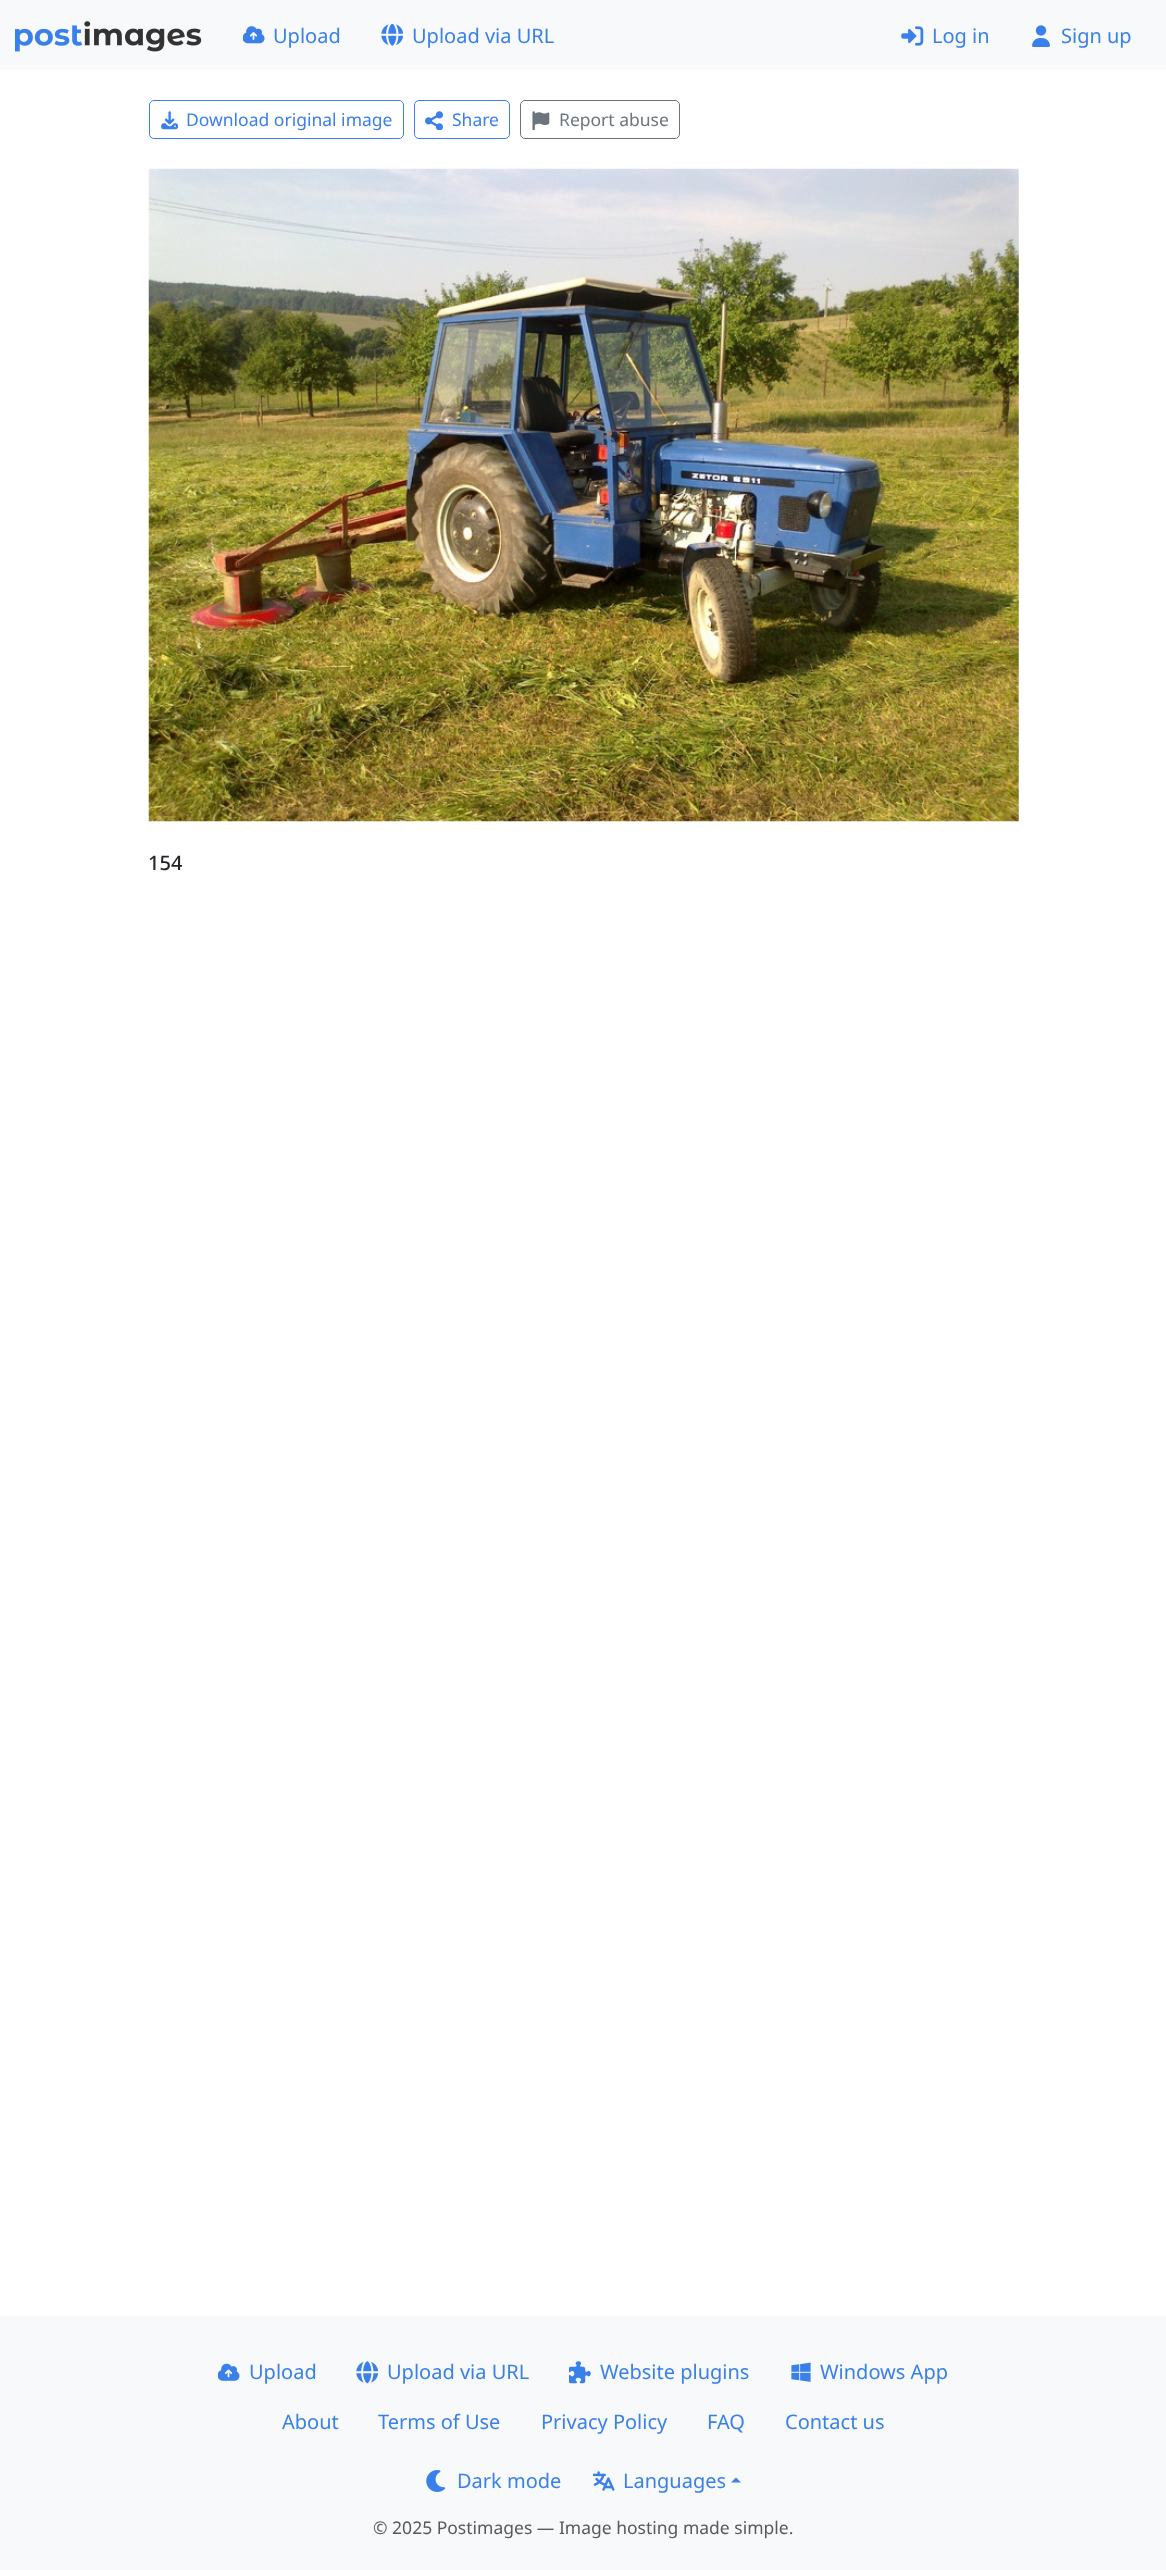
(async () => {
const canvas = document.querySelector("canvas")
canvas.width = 1166
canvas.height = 2570
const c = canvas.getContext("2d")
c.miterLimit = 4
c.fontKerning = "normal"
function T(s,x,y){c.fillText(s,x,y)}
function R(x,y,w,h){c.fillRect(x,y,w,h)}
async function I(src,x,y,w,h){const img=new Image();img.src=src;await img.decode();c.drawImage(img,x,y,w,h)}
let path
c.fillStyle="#fff"
R(0,0,1166,2570)
c.fillStyle="#f8f9fa"
R(0,0,1166,70)
await I("1.png",15,21,187,31)
await I("2.png",243,26,22,18)
c.font="20px Noto Sans"
c.fillStyle="#3a80ea"
T("Upload",273,43)
await I("3.png",381,24,22,22)
T("Upload via URL",412,43)
await I("4.png",901,26,23,20)
T("Log in",932,43)
await I("5.png",1032,25,18,22)
T("Sign up",1061,43)
c.beginPath()
c.roundRect(149.5,100.5,254,38,4.5)
c.strokeStyle="#3a80ea"
c.stroke()
await I("6.png",161,111,18,19)
c.font="17.5px Noto Sans"
T("Download original image",186,126)
c.beginPath()
c.roundRect(414.5,100.5,95,38,4.5)
c.stroke()
await I("7.png",425,111,18,19)
T("Share",452,126)
c.beginPath()
c.roundRect(520.5,100.5,159,38,4.5)
c.strokeStyle="#6c757d"
c.stroke()
await I("8.png",532,111,18,19)
c.fillStyle="#6c757d"
T("Report abuse",559,126)
await I("9.png",148,168,871,654)
c.font="500 20px Noto Sans"
c.fillStyle="#212529"
T("154",148,870)
c.fillStyle="#f8f9fa"
R(0,2316,1166,254)
await I("10.png",218,2363,22,18)
c.font="20px Noto Sans"
c.fillStyle="#3a80ea"
T("Upload",249,2379)
await I("11.png",356,2361,23,23)
T("Upload via URL",387,2379)
await I("12.png",569,2361,22,23)
T("Website plugins",600,2379)
await I("13.png",791,2362,20,20)
T("Windows App",820,2379)
T("About",282,2429)
T("Terms of Use",378,2429)
T("Privacy Policy",541,2429)
T("FAQ",707,2429)
T("Contact us",785,2429)
await I("14.png",426,2470,20,22)
T("Dark mode",457,2488)
await I("15.png",593,2471,22,20)
T("Languages",623,2488)
path = new Path2D("M741 2482.5h-10l5-5z")
c.fill(path)
c.font="17.5px Noto Sans"
c.fillStyle="#575a5d"
T("© 2025 Postimages — Image hosting made simple.",373,2534)
})()
